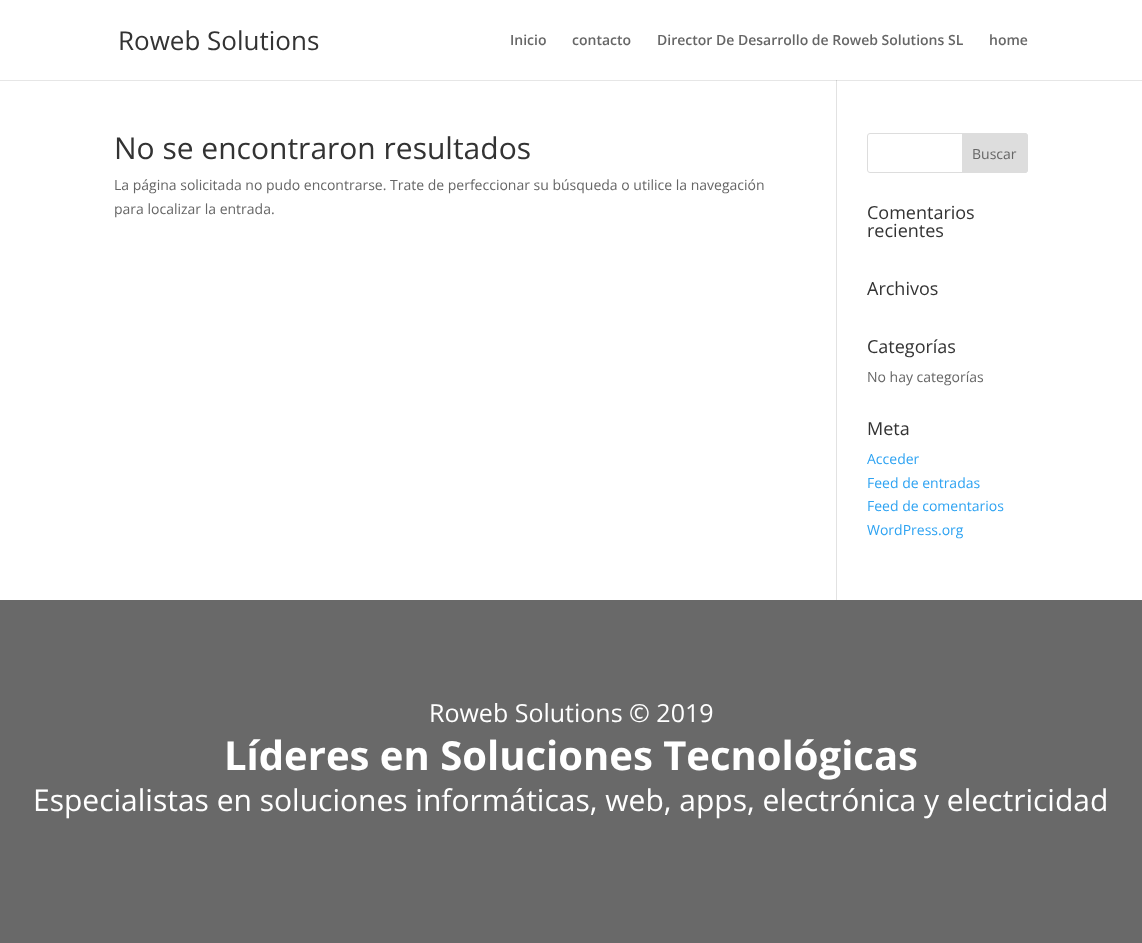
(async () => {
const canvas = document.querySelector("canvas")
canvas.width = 1142
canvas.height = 943
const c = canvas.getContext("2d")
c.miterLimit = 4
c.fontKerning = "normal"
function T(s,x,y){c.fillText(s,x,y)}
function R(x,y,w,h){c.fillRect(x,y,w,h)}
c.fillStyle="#fff"
R(0,0,1142,943)
c.fillStyle="#e6e6e6"
R(0,80,1142,1)
c.fillStyle="#e2e2e2"
R(836,75,1,525)
c.fillStyle="#fff"
R(836,75,1,5)
c.font="26px Open Sans"
c.fillStyle="#333"
T("Roweb Solutions",118,50)
c.font="600 14px Open Sans"
c.fillStyle="#666"
T("Inicio",510,45)
T("contacto",572,45)
T("Director De Desarrollo de Roweb Solutions SL",657,45)
T("home",989,45)
c.fillStyle="#cbcbcb"
R(836,80,1,1)
c.font="30px Open Sans"
c.fillStyle="#333"
T("No se encontraron resultados",114,159)
c.font="14px Open Sans"
c.fillStyle="#666"
T("La página solicitada no pudo encontrarse. Trate de perfeccionar su búsqueda o utilice la navegación",114,190)
T("para localizar la entrada.",114,214)
c.beginPath()
c.roundRect(867.5,133.5,160,39,2.5)
c.strokeStyle="#ddd"
c.stroke()
c.fillStyle="#ddd"
c.beginPath()
c.roundRect(962.5,133.5,65,39,[0,2.5,2.5,0])
c.fill()
c.stroke()
c.fillStyle="#666"
T("Buscar",972,159)
c.font="18px Open Sans"
c.fillStyle="#333"
T("Comentarios",867,219)
T("recientes",867,237)
T("Archivos",867,295)
T("Categorías",867,353)
c.font="14px Open Sans"
c.fillStyle="#666"
T("No hay categorías",867,382)
c.font="18px Open Sans"
c.fillStyle="#333"
T("Meta",867,435)
c.font="14px Open Sans"
c.fillStyle="#2ea3f2"
T("Acceder",867,464)
T("Feed de entradas",867,488)
T("Feed de comentarios",867,511)
T("WordPress.org",867,535)
c.fillStyle="#696969"
R(0,600,1142,343)
c.font="25px Open Sans"
c.fillStyle="#fff"
T("Roweb Solutions © 2019",429,722)
c.font="bold 40px Open Sans"
T("Líderes en Soluciones Tecnológicas",224,770)
c.font="30px Open Sans"
T("Especialistas en soluciones informáticas, web, apps, electrónica y electricidad",33,811)
})()
